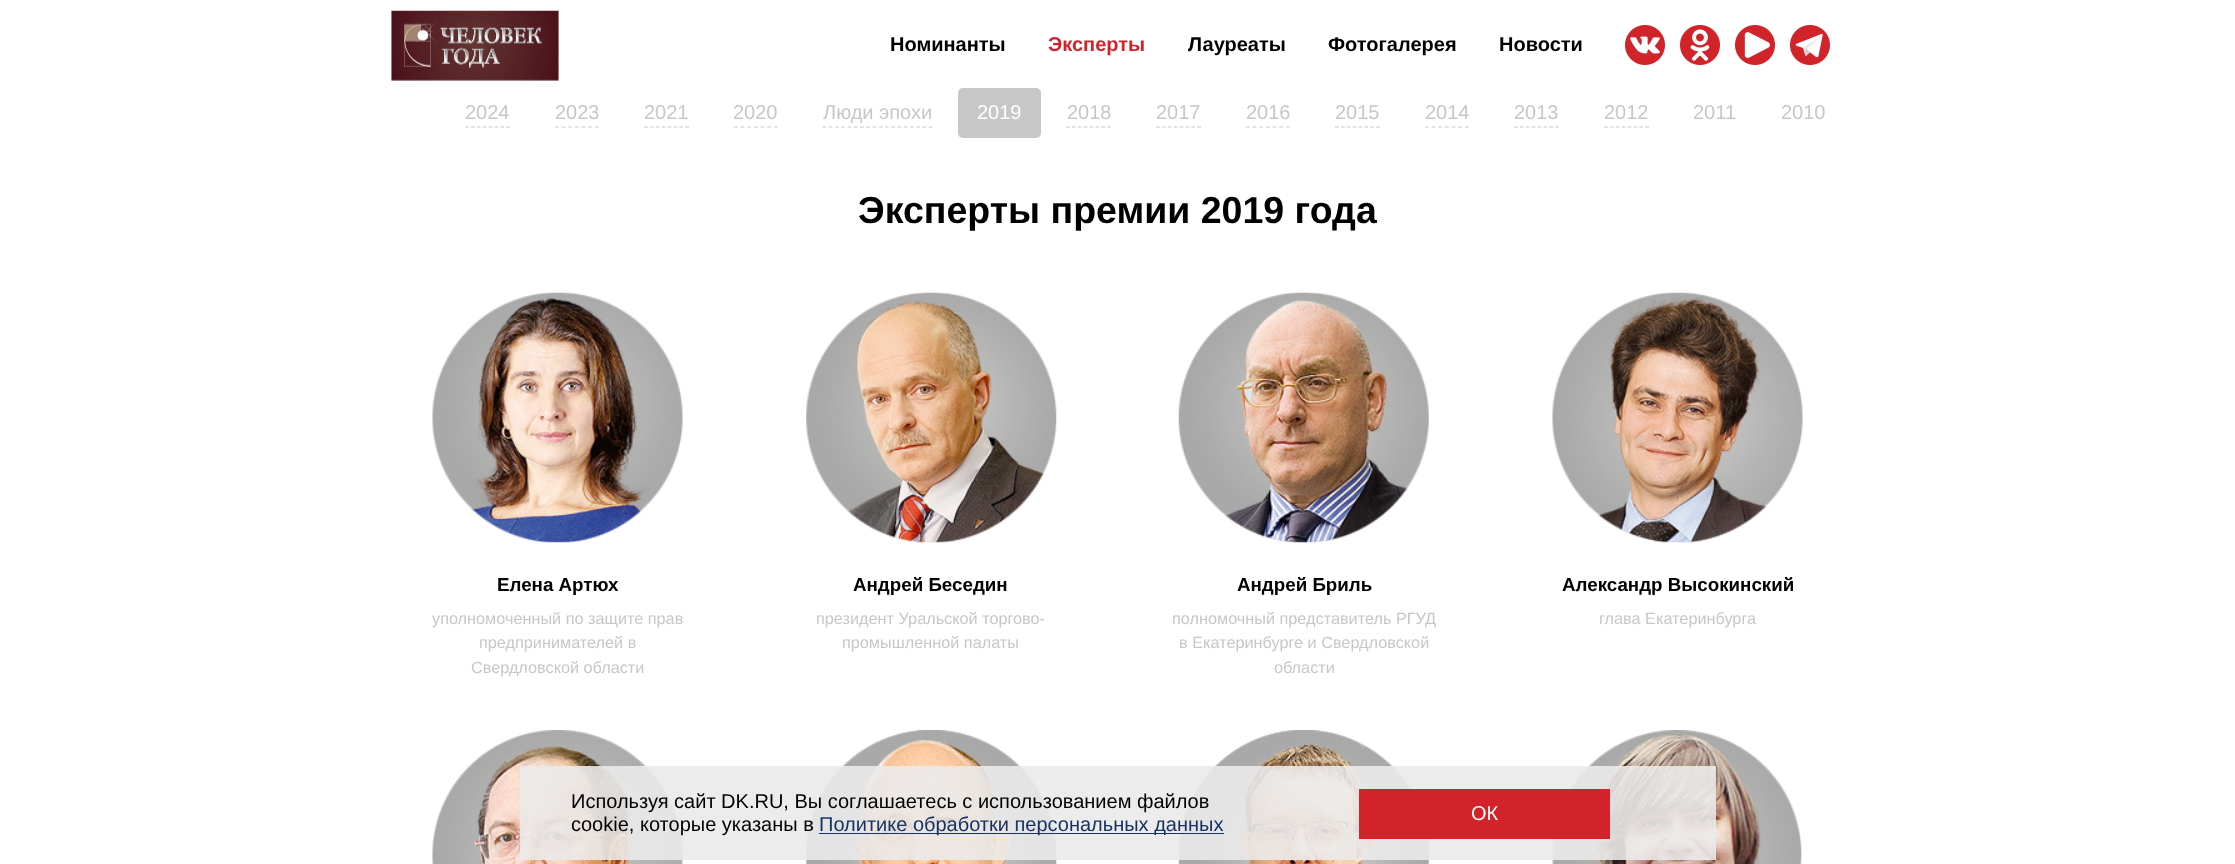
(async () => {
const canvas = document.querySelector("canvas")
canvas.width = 2235
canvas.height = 864
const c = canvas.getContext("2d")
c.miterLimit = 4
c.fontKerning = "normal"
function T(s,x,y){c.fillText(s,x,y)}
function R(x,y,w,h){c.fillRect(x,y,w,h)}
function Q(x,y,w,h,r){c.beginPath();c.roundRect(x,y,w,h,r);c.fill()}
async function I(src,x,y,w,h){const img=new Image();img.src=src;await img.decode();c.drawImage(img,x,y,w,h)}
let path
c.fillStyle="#fff"
R(0,0,2235,864)
await I("1.png",391,10,168,71)
c.font="bold 20px Liberation Sans"
c.fillStyle="#000"
T("Номинанты",890,51)
c.fillStyle="#d2232a"
T("Эксперты",1048,51)
c.fillStyle="#000"
T("Лауреаты",1188,51)
T("Фотогалерея",1328,51)
T("Новости",1499,51)
await I("2.png",1625,25,40,40)
await I("3.png",1680,25,40,40)
await I("4.png",1735,25,40,40)
await I("5.png",1790,25,40,40)
c.font="20px Liberation Sans"
c.fillStyle="#c7c7c7"
T("2024",465,119)
path = new Path2D("M465 127h45")
c.strokeStyle="#c7c7c7"
c.lineWidth=1.2
c.setLineDash([3.75,2.14])
c.stroke(path)
T("2023",555,119)
path = new Path2D("M555 127h44")
c.setLineDash([3.75,2.91])
c.stroke(path)
T("2021",644,119)
path = new Path2D("M644 127h45")
c.setLineDash([3.75,2.14])
c.stroke(path)
T("2020",733,119)
path = new Path2D("M734 127h43.5")
c.setLineDash([3.75,2.91])
c.stroke(path)
T("Люди эпохи",823,119)
path = new Path2D("M822.5 127h110")
c.setLineDash([3.75,2.5])
c.stroke(path)
Q(958,88,83,50,5)
c.fillStyle="#fff"
T("2019",977,119)
c.fillStyle="#c7c7c7"
T("2018",1067,119)
path = new Path2D("M1066 127h45")
c.setLineDash([3.75,2.14])
c.stroke(path)
T("2017",1156,119)
path = new Path2D("M1156 127h45")
c.stroke(path)
T("2016",1246,119)
path = new Path2D("M1246 127h44")
c.setLineDash([3.75,2.91])
c.stroke(path)
T("2015",1335,119)
path = new Path2D("M1335 127h45")
c.setLineDash([3.75,2.14])
c.stroke(path)
T("2014",1425,119)
path = new Path2D("M1425 127h44")
c.setLineDash([3.75,2.91])
c.stroke(path)
T("2013",1514,119)
path = new Path2D("M1514 127h45")
c.setLineDash([3.75,2.14])
c.stroke(path)
T("2012",1604,119)
path = new Path2D("M1604 127h45")
c.stroke(path)
T("2011",1693,119)
T("2010",1781,119)
c.font="bold 37.5px Liberation Sans"
c.fillStyle="#000"
T("Эксперты премии 2019 года",858,223)
await I("6.png",432,292,251,251)
c.font="bold 18.75px Liberation Sans"
T("Елена Артюх",497,591)
c.font="16.25px Liberation Sans"
c.fillStyle="#c7c7c7"
T("уполномоченный по защите прав",432,624)
T("предпринимателей в",479,648)
T("Свердловской области",471,673)
await I("7.png",806,292,251,251)
c.font="bold 18.75px Liberation Sans"
c.fillStyle="#000"
T("Андрей Беседин",853,591)
c.font="16.25px Liberation Sans"
c.fillStyle="#c7c7c7"
T("президент Уральской торгово-",816,624)
T("промышленной палаты",842,648)
await I("8.png",1178,292,251,251)
c.font="bold 18.75px Liberation Sans"
c.fillStyle="#000"
T("Андрей Бриль",1237,591)
c.font="16.25px Liberation Sans"
c.fillStyle="#c7c7c7"
T("полномочный представитель РГУД",1172,624)
T("в Екатеринбурге и Свердловской",1179,648)
T("области",1274,673)
await I("9.png",1552,292,251,251)
c.font="bold 18.75px Liberation Sans"
c.fillStyle="#000"
T("Александр Высокинский",1562,591)
c.font="16.25px Liberation Sans"
c.fillStyle="#c7c7c7"
T("глава Екатеринбурга",1599,624)
await I("10.png",432,730,251,134)
await I("11.png",806,730,251,134)
await I("12.png",1178,730,251,134)
await I("13.png",1552,730,250,134)
c.fillStyle="#ebeaeae6"
R(520,766,1196,94)
c.font="20px Liberation Sans"
c.fillStyle="#000"
T("Используя сайт DK.RU, Вы соглашаетесь с использованием файлов",571,808)
T("cookie, которые указаны в",571,831)
c.fillStyle="#163364"
R(819,833,405,1)
T("Политике обработки персональных данных",819,831)
c.fillStyle="#d2232a"
R(1359,789,251,50)
c.fillStyle="#fff"
T("ОК",1471,820)
})()
